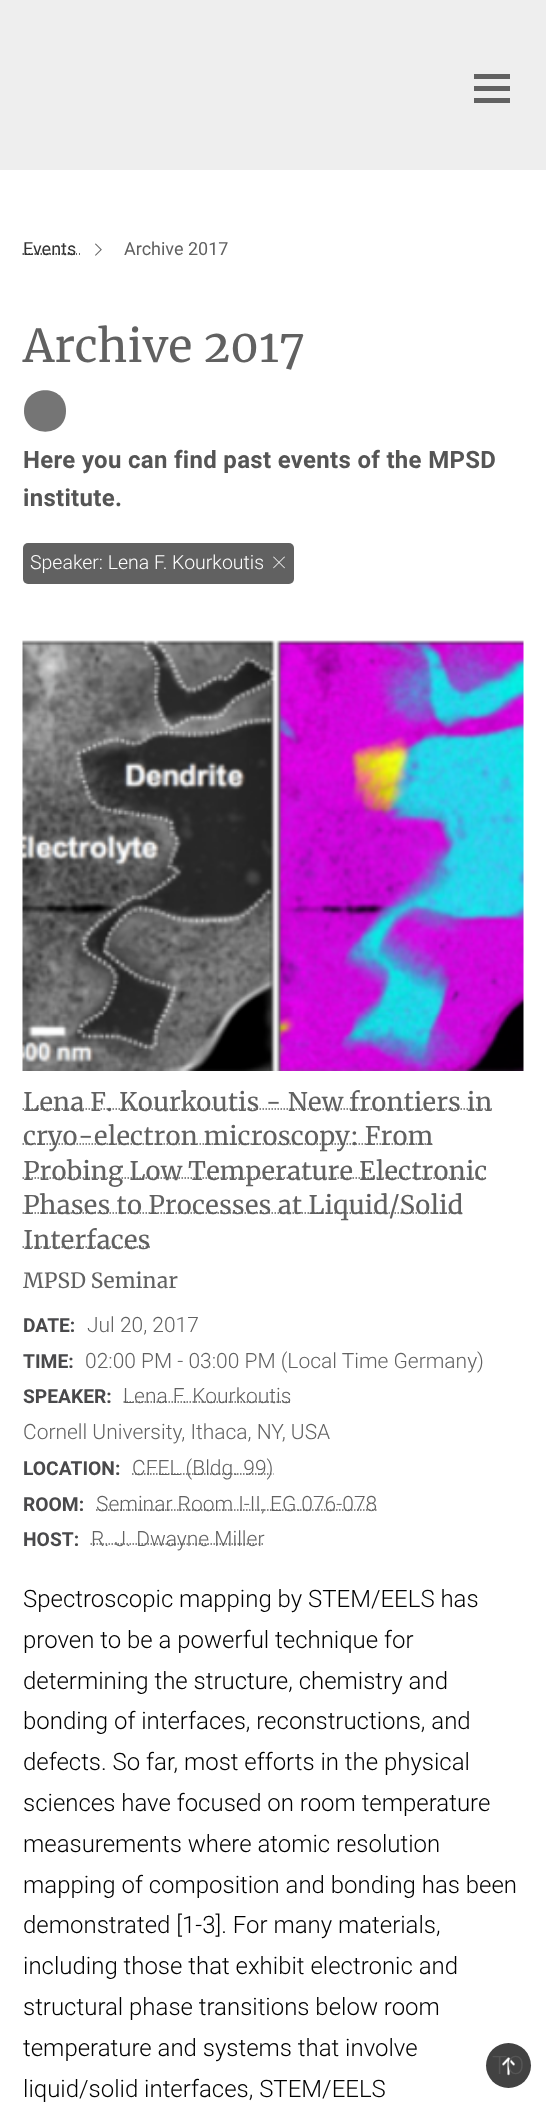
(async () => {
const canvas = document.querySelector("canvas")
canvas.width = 546
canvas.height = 2103
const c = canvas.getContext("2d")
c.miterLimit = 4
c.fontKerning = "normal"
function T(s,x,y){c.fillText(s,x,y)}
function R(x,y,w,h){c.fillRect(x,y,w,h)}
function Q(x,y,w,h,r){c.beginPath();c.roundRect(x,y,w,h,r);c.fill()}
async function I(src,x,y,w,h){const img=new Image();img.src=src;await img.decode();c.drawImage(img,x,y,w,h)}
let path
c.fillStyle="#fff"
R(0,0,546,2103)
c.fillStyle="#eee"
R(0,0,546,170)
c.fillStyle="#616161"
R(474,74,36,5)
R(474,86,36,5)
R(474,98,36,5)
path = new Path2D("M22.5 254h53.5")
c.strokeStyle="#333"
c.lineWidth=1.5
c.setLineDash([1.5,1.5])
c.stroke(path)
c.font="18px Roboto"
c.fillStyle="#333"
T("Events",23,255)
path = new Path2D("M76 254h1m2 0h1")
c.setLineDash([])
c.stroke(path)
await I("1.png",95,243,7,13)
c.fillStyle="#616161"
T("Archive 2017",124,255)
c.font="45px Merriweather"
T("Archive 2017",23,362)
c.fillStyle="#757575"
path = new Path2D("M66 411c0 28-42 27-42 0c0-27 42-28 42 0z")
c.fill(path)
c.letterSpacing="0.3px"
c.font="bold 24px Roboto"
c.fillStyle="#555"
T("Here you can find past events of the MPSD",23,468)
T("institute.",23,506)
c.fillStyle="#616161"
Q(23,543,271,41,5)
c.letterSpacing="0px"
c.font="300 19.5px Roboto"
c.fillStyle="#fff"
T("Speaker: Lena F. Kourkoutis",30,569)
await I("2.png",273,556,12,13)
await I("3.png",22,640,502,431)
path = new Path2D("M22.5 1109h469.5")
c.strokeStyle="#616161"
c.setLineDash([1.5,1.5])
c.stroke(path)
c.font="25.5px Merriweather"
c.fillStyle="#616161"
T("Lena F. Kourkoutis - New frontiers in",23,1111)
path = new Path2D("M22.5 1144h410")
c.stroke(path)
T("cryo-electron microscopy: From",23,1145)
path = new Path2D("M22.5 1178h464")
c.stroke(path)
T("Probing Low Temperature Electronic",23,1180)
path = new Path2D("M22.5 1213h440.5")
c.stroke(path)
T("Phases to Processes at Liquid/Solid",23,1214)
path = new Path2D("M22.5 1247h127.5")
c.stroke(path)
T("Interfaces",23,1249)
c.font="21px Merriweather"
T("MPSD Seminar",23,1288)
c.font="bold 19.25px Roboto"
c.fillStyle="#49494b"
T("DATE:",23,1332)
c.font="300 21px Roboto"
c.fillStyle="#616161"
T("Jul 20, 2017",87,1332)
c.save()
c.beginPath()
c.rect(23,1293,501,281)
c.clip()
c.font="bold 19.25px Roboto"
c.fillStyle="#49494b"
T("TIME:",23,1368)
c.restore()
T("02:00 PM - 03:00 PM (Local Time Germany)",85,1368)
c.font="bold 19.25px Roboto"
c.fillStyle="#49494b"
T("SPEAKER:",23,1403)
path = new Path2D("M123.5 1402h168")
c.stroke(path)
c.font="300 21px Roboto"
c.fillStyle="#616161"
T("Lena F. Kourkoutis",123,1403)
T("Cornell University, Ithaca, NY, USA",23,1439)
c.font="bold 19.25px Roboto"
c.fillStyle="#49494b"
T("LOCATION:",23,1475)
path = new Path2D("M132 1474h141.5")
c.stroke(path)
c.font="300 21px Roboto"
c.fillStyle="#616161"
T("CFEL (Bldg. 99)",132,1475)
c.font="bold 19.25px Roboto"
c.fillStyle="#49494b"
T("ROOM:",23,1511)
path = new Path2D("M96 1510h281")
c.stroke(path)
c.font="300 21px Roboto"
c.fillStyle="#616161"
T("Seminar Room I-II, EG.076-078",96,1511)
c.font="bold 19.25px Roboto"
c.fillStyle="#49494b"
T("HOST:",23,1546)
path = new Path2D("M90.5 1544h173.5")
c.stroke(path)
c.font="300 21px Roboto"
c.fillStyle="#616161"
T("R. J. Dwayne Miller",91,1546)
c.font="300 24px Roboto"
c.fillStyle="#000"
T("Spectroscopic mapping by STEM/EELS has",23,1607)
T("proven to be a powerful technique for",23,1648)
T("determining the structure, chemistry and",23,1689)
T("bonding of interfaces, reconstructions, and",23,1729)
T("defects. So far, most efforts in the physical",23,1770)
T("sciences have focused on room temperature",23,1811)
T("measurements where atomic resolution",23,1852)
T("mapping of composition and bonding has been",23,1893)
T("demonstrated [1-3]. For many materials,",23,1933)
T("including those that exhibit electronic and",23,1974)
T("structural phase transitions below room",23,2015)
T("temperature and systems that involve",23,2056)
T("liquid/solid interfaces, STEM/EELS",23,2097)
c.fillStyle="#424242"
c.beginPath()
c.arc(508.5,2065.5,22.5,0,7)
c.fill()
await I("4.png",502,2057,13,19)
c.font="300 25.5px Roboto"
c.fillStyle="#555"
T("TO",492,2074)
})()
